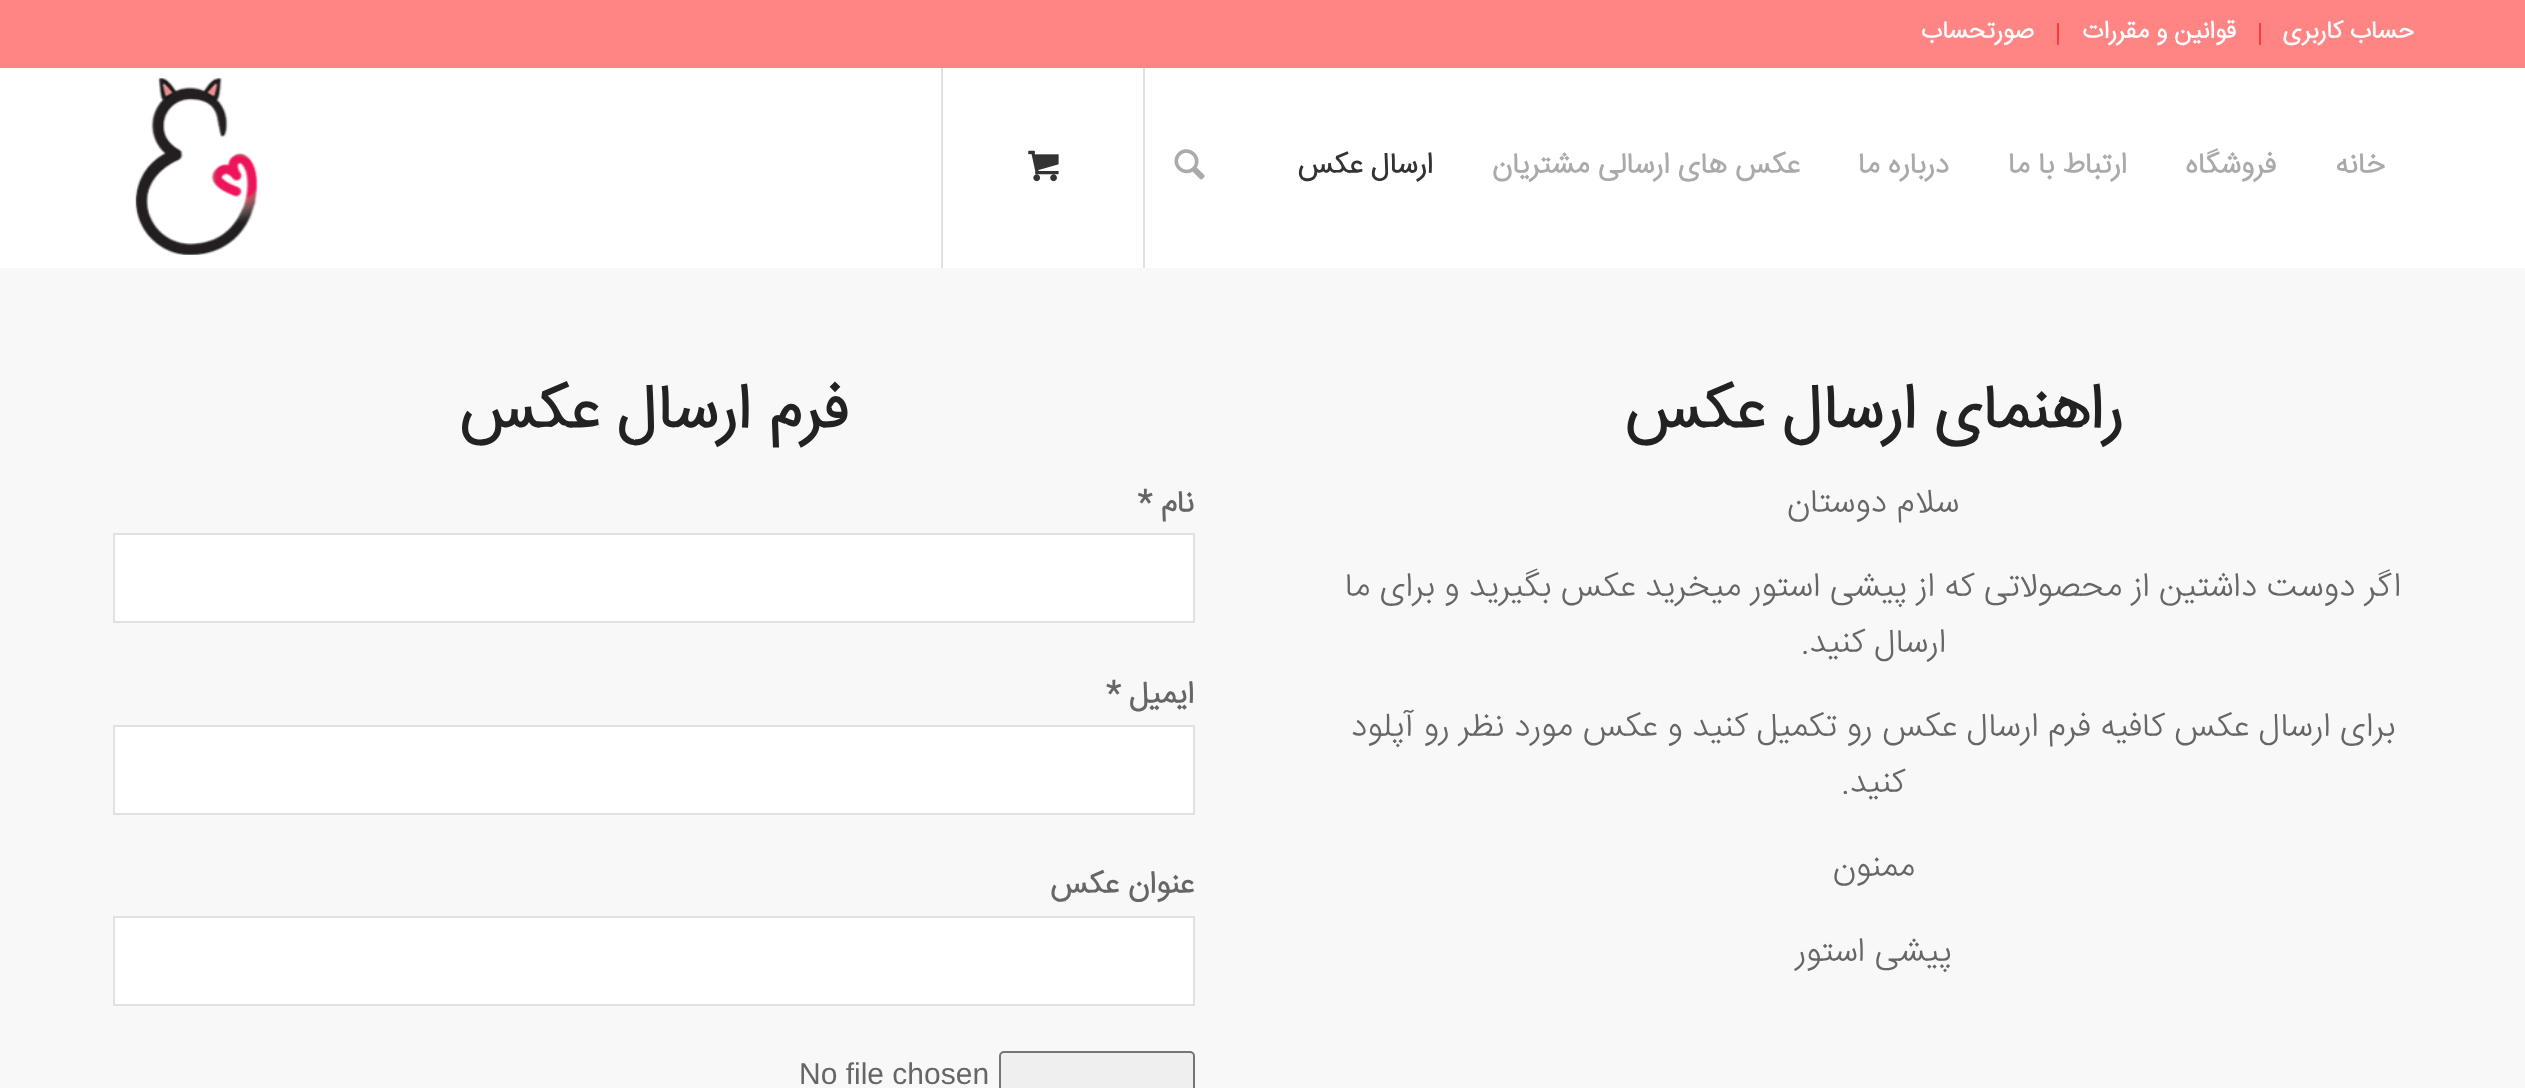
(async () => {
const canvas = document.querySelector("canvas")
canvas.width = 2525
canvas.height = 1088
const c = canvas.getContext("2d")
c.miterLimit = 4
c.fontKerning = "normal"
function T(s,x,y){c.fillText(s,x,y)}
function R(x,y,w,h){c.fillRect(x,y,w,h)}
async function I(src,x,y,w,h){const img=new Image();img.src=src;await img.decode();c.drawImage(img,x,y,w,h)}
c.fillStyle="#fff"
R(0,0,2525,1088)
c.fillStyle="#e1e1e1"
R(1143,65,2,203)
R(941,65,2,203)
c.fillStyle="#ff8585"
R(0,0,2525,68)
c.fillStyle="#ff3c3c"
R(2259,23,2,22)
c.direction="rtl"
c.font="bold 24.75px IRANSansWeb"
c.fillStyle="#fff"
T("حساب کاربری",2414,38)
c.fillStyle="#ff3c3c"
R(2057,23,2,22)
c.fillStyle="#fff"
T("قوانین و مقررات",2236,38)
T("صورتحساب",2034,38)
c.font="bold 29.25px IRANSansWeb"
c.fillStyle="#aaa"
T("خانه",2385,173)
T("فروشگاه",2276,173)
T("ارتباط با ما",2127,173)
T("درباره ما",1949,173)
T("عکس های ارسالی مشتریان",1800,173)
c.fillStyle="#333"
T("ارسال عکس",1433,173)
await I("1.png",1174,149,31,31)
await I("2.png",1028,150,31,32)
await I("3.png",135,78,123,177)
c.fillStyle="#f8f8f8"
R(0,268,2525,820)
c.font="bold 63px IRANSansWeb"
c.fillStyle="#222"
T("راهنمای ارسال عکس",2123,428)
c.font="300 33.75px IRANSansWeb"
c.fillStyle="#666"
T("سلام دوستان",1959,512)
T("اگر دوست داشتین از محصولاتی که از پیشی استور میخرید عکس بگیرید و برای ما",2401,596)
T("ارسال کنید.",1946,652)
T("برای ارسال عکس کافیه فرم ارسال عکس رو تکمیل کنید و عکس مورد نظر رو آپلود",2395,736)
T("کنید.",1905,792)
T("ممنون",1915,876)
T("پیشی استور",1952,961)
c.font="bold 63px IRANSansWeb"
c.fillStyle="#222"
T("فرم ارسال عکس",848,428)
c.font="bold 31px IRANSansWeb"
c.fillStyle="#666"
T("نام *",1194,512)
c.fillStyle="#fff"
c.beginPath()
c.rect(114,534,1080,88)
c.fill()
c.strokeStyle="#e1e1e1"
c.lineWidth=2
c.stroke()
c.fillStyle="#666"
T("ایمیل *",1194,703)
c.fillStyle="#fff"
c.beginPath()
c.rect(114,726,1080,88)
c.fill()
c.stroke()
c.fillStyle="#666"
T("عنوان عکس",1194,893)
c.fillStyle="#fff"
c.beginPath()
c.rect(114,917,1080,88)
c.fill()
c.stroke()
c.fillStyle="#efefef"
c.beginPath()
c.roundRect(1000,1052,194,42,4)
c.fill()
c.strokeStyle="#767676"
c.stroke()
c.direction="ltr"
c.font="30px Liberation Sans"
c.fillStyle="#666"
T("No file chosen",799,1084)
})()
